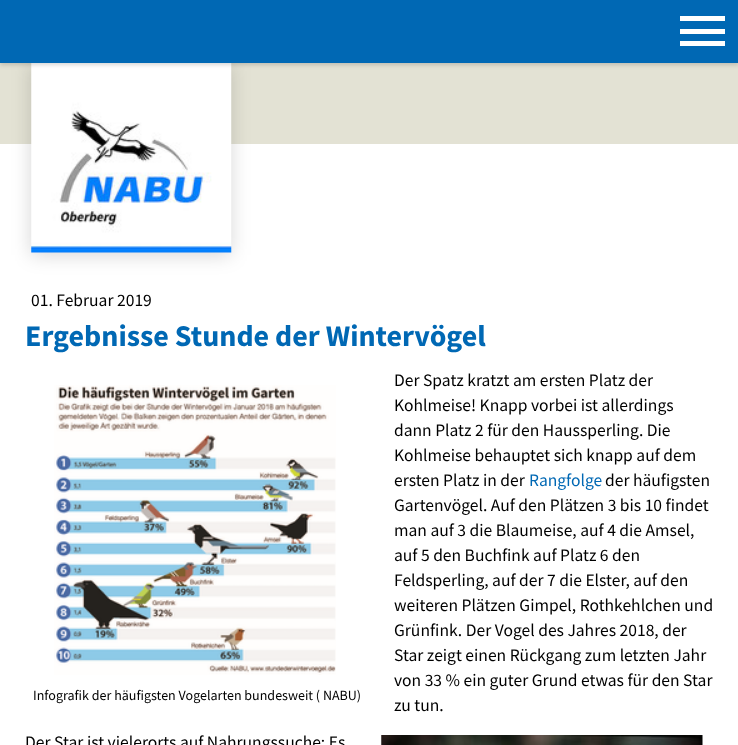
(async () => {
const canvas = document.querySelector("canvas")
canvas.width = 738
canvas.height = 745
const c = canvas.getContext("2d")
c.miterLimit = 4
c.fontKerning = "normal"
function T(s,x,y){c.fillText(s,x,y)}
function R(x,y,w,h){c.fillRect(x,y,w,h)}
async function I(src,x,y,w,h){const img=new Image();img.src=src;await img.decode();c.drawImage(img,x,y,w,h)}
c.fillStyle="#e3e2d4"
R(0,0,738,745)
c.fillStyle="#fff"
R(0,144,738,601)
c.fillStyle="#00000029"
c.filter="blur(9.5px)"
c.beginPath()
c.rect(31,65,200,190)
c.fill()
c.filter="none"
await I("1.png",31,63,201,190)
c.filter="blur(2px)"
c.beginPath()
c.rect(0,3,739,62)
c.fill()
c.filter="none"
c.fillStyle="#0068b4"
R(0,0,738,63)
c.fillStyle="#fff"
R(680,29,45,5)
R(680,16,45,5)
R(680,41,45,5)
c.font="17.5px Source Sans Pro"
c.fillStyle="#000"
T("01. Februar 2019",31,306)
c.font="bold 30px Source Sans Pro"
c.fillStyle="#0068b4"
T("Ergebnisse Stunde der Wintervögel",25,346)
await I("2.png",54,385,282,290)
c.font="14px Source Sans Pro"
c.fillStyle="#000"
T("Infografik der häufigsten Vogelarten bundesweit ( NABU)",33,700)
c.font="17.5px Source Sans Pro"
T("Der Spatz kratzt am ersten Platz der",394,386)
T("Kohlmeise! Knapp vorbei ist allerdings",394,411)
T("dann Platz 2 für den Haussperling. Die",394,436)
T("Kohlmeise behauptet sich knapp auf dem",394,461)
T("ersten Platz in der",394,486)
c.fillStyle="#0068b4"
T("Rangfolge",529,486)
c.fillStyle="#000"
T("der häufigsten",605,486)
T("Gartenvögel. Auf den Plätzen 3 bis 10 findet",394,511)
T("man auf 3 die Blaumeise, auf 4 die Amsel,",394,536)
T("auf 5 den Buchfink auf Platz 6 den",394,561)
T("Feldsperling, auf der 7 die Elster, auf den",394,586)
T("weiteren Plätzen Gimpel, Rothkehlchen und",394,611)
T("Grünfink. Der Vogel des Jahres 2018, der",394,636)
T("Star zeigt einen Rückgang zum letzten Jahr",394,661)
T("von 33 % ein guter Grund etwas für den Star",394,686)
T("zu tun.",394,711)
T("Der Star ist vielerorts auf Nahrungssuche: Es",25,748)
await I("3.png",381,735,322,10)
})()
